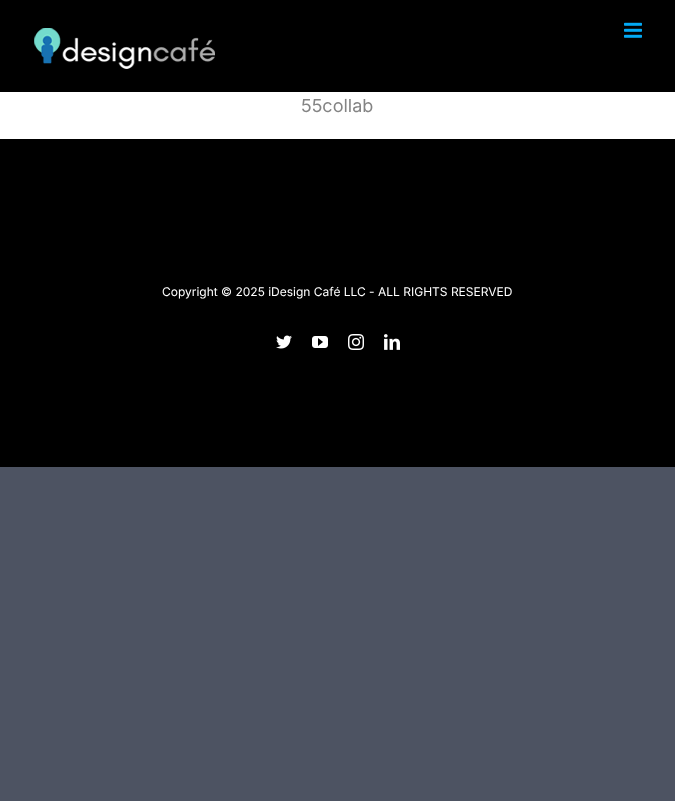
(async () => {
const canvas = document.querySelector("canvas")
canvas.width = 675
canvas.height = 801
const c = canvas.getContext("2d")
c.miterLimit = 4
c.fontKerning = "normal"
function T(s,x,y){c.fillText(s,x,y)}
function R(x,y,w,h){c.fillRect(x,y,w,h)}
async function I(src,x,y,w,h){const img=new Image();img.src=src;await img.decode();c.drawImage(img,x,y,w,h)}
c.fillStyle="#4d5362"
R(0,0,675,801)
c.fillStyle="#fff"
R(0,92,675,47)
c.fillStyle="#000"
R(0,0,675,92)
await I("1.png",34,28,181,41)
await I("2.png",624,22,18,16)
c.font="18px Inter"
c.fillStyle="#848484"
T("55collab",301,112)
c.fillStyle="#000"
R(0,139,675,328)
c.font="12px Inter"
c.fillStyle="#fff"
T("Copyright © 2025 iDesign Café LLC - ALL RIGHTS RESERVED",162,296)
await I("3.png",276,335,16,14)
await I("4.png",312,336,16,12)
await I("5.png",348,334,16,16)
await I("6.png",384,334,16,16)
})()
